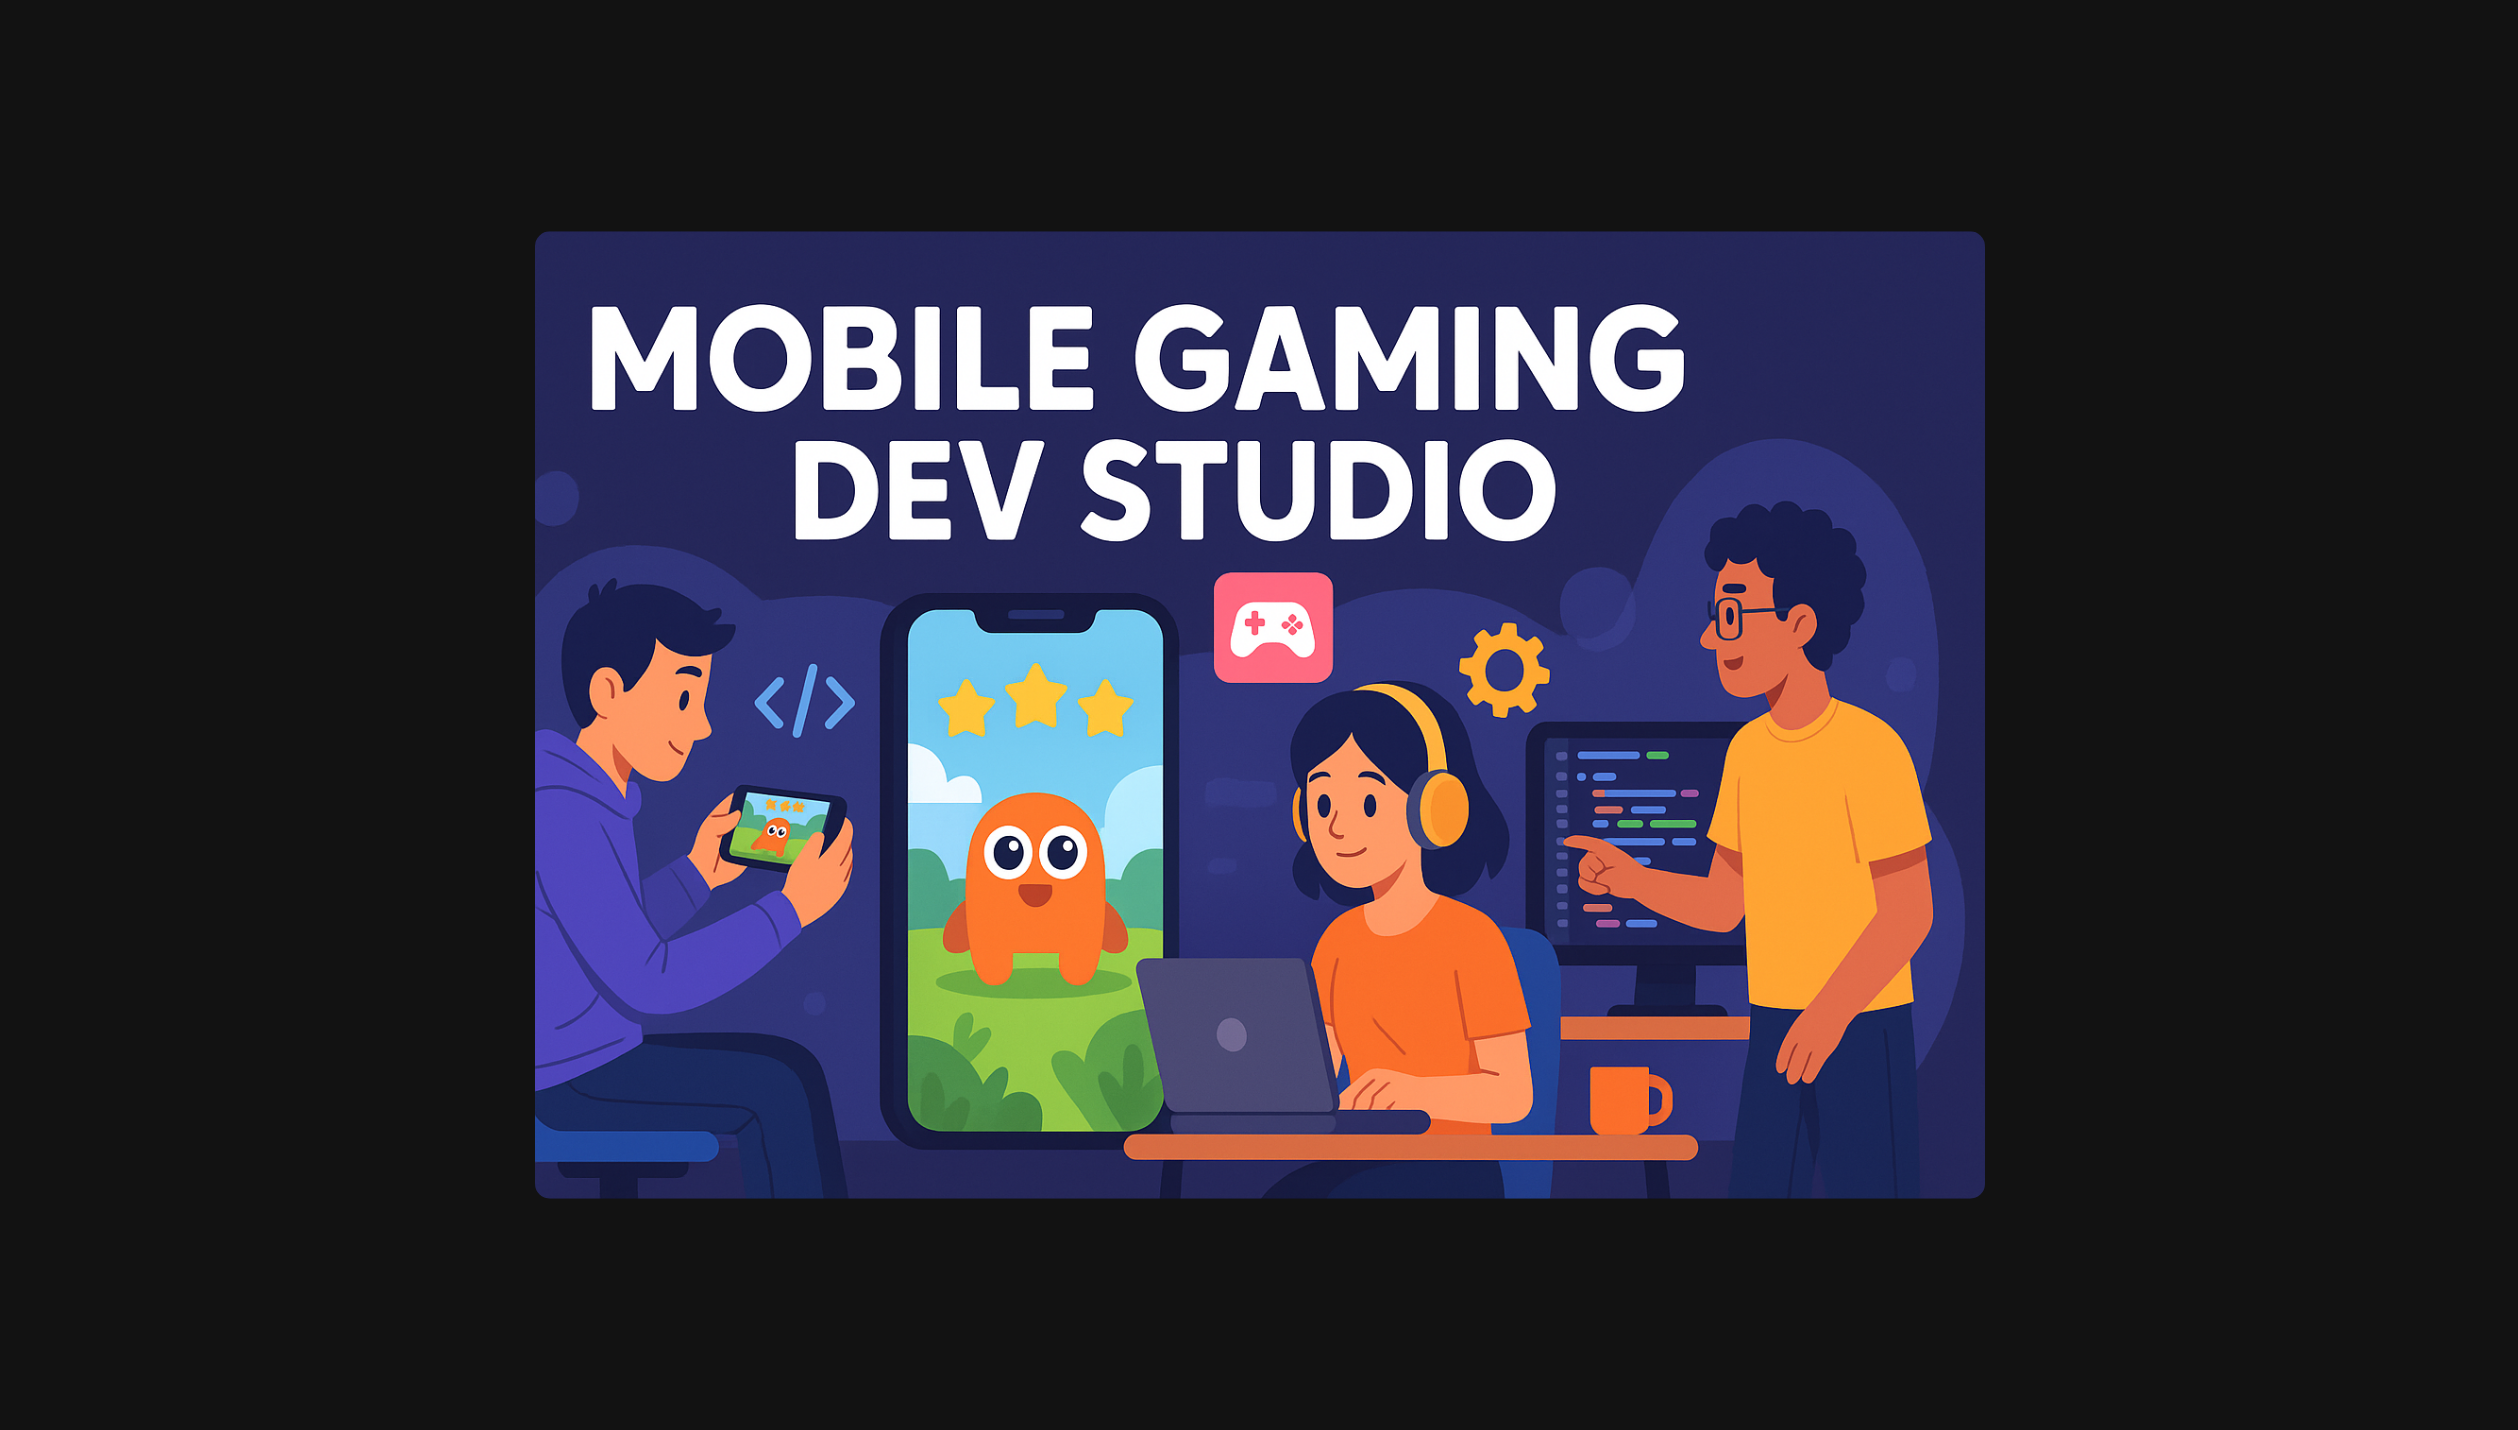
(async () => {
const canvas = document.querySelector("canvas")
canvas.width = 2518
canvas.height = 1430
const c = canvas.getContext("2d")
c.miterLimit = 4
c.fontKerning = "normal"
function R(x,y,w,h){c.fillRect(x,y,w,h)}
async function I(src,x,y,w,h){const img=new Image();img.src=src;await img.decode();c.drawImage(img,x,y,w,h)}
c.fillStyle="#121212"
R(0,0,2518,1430)
await I("1.png",535,231,1450,968)
})()
